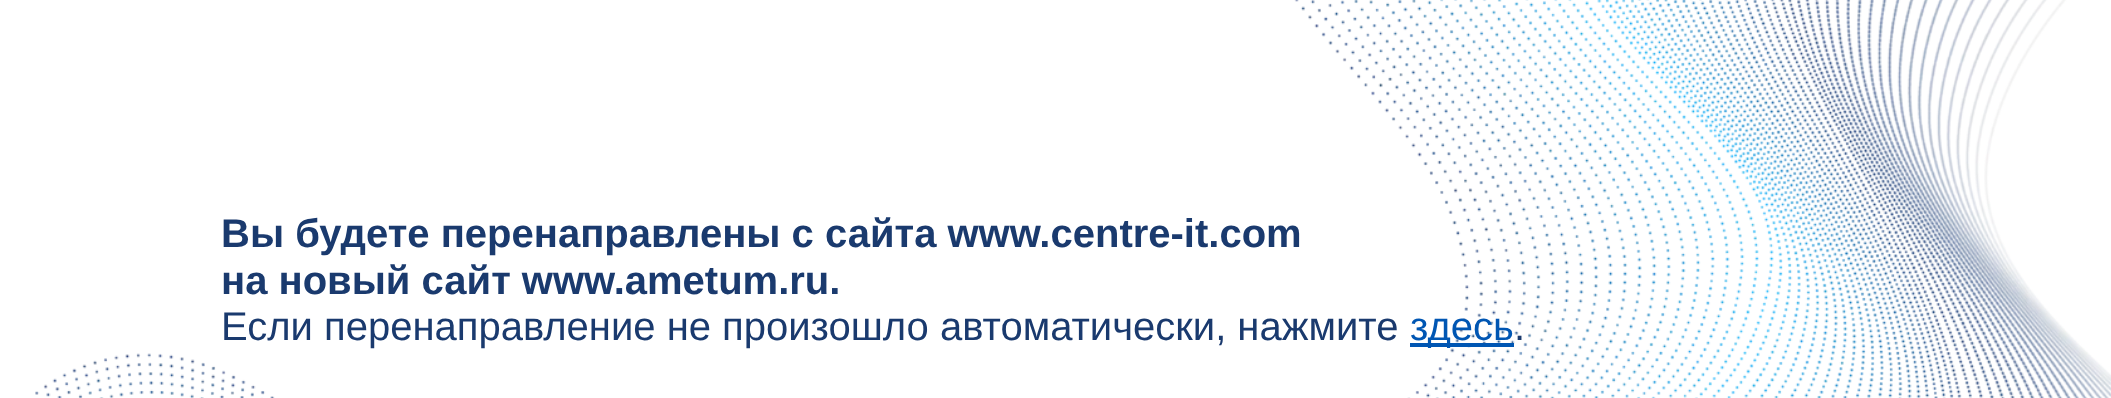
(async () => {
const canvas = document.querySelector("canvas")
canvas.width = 2111
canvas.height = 398
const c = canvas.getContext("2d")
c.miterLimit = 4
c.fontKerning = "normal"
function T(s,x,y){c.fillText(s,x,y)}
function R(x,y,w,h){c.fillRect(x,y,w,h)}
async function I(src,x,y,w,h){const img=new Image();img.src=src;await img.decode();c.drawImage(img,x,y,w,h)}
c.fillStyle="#fff"
R(0,0,2111,398)
await I("1.png",35,0,2076,398)
c.font="bold 40px Liberation Sans"
c.fillStyle="#1a3a6e"
T("Вы будете перенаправлены с сайта www.centre-it.com",221,247)
T("на новый сайт www.ametum.ru.",221,294)
c.font="40px Liberation Sans"
T("Если перенаправление не произошло автоматически, нажмите",221,340)
c.fillStyle="#0056b3"
R(1410,343,104,4)
T("здесь",1410,340)
c.fillStyle="#1a3a6e"
T(".",1514,340)
})()
